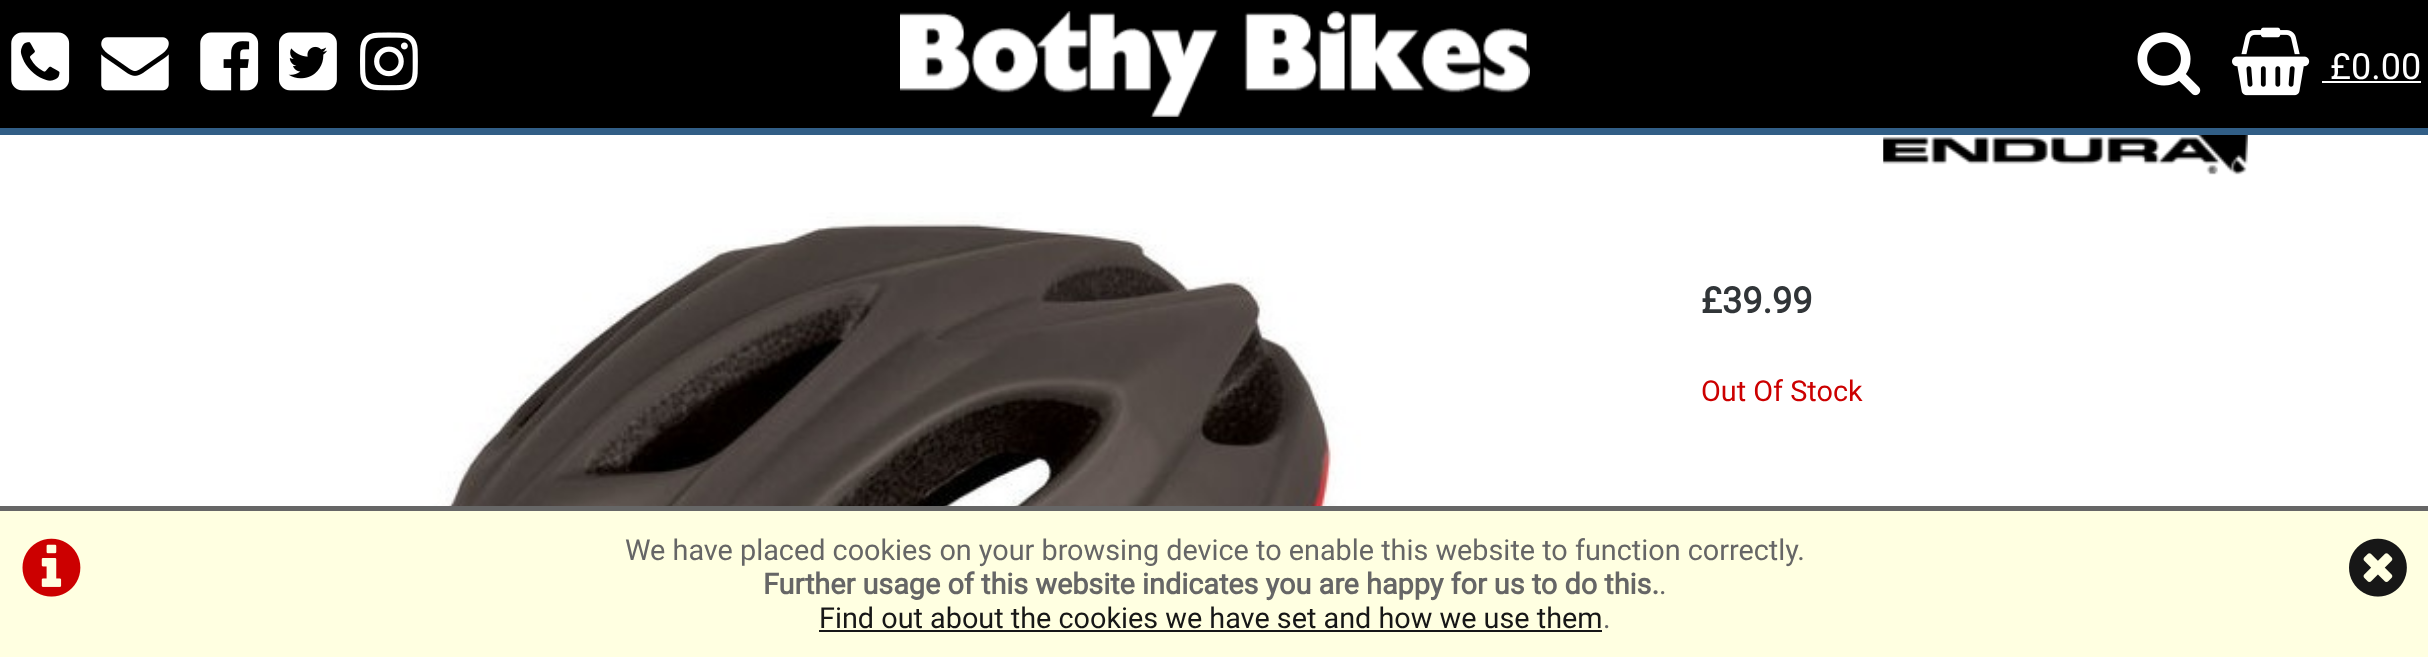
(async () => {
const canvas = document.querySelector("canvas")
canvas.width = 2428
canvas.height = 657
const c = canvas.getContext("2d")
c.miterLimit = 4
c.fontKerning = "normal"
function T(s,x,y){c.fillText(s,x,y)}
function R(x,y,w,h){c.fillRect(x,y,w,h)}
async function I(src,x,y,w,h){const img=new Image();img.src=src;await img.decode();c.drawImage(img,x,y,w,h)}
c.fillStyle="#fff"
R(0,0,2428,657)
c.fillStyle="#000"
R(0,0,2428,128)
c.fillStyle="#315e86"
R(0,128,2428,7)
await I("1.png",11,32,59,59)
await I("2.png",101,37,68,54)
await I("3.png",200,32,59,59)
await I("4.png",279,32,58,59)
await I("5.png",360,32,58,59)
await I("6.png",900,11,630,106)
await I("7.png",2137,32,64,64)
await I("8.png",2232,27,78,69)
c.font="36px Roboto"
c.fillStyle="#fff"
T("£0.00",2330,79)
R(2322,81,99,2)
await I("9.png",364,212,997,294)
await I("10.png",1883,135,365,40)
c.font="bold 36px Roboto"
c.fillStyle="#313538"
T("£39.99",1701,313)
c.font="28.8px Roboto"
c.fillStyle="#c00"
T("Out Of Stock",1701,401)
c.fillStyle="#ffffe1"
R(0,511,2428,146)
c.fillStyle="#666"
R(0,506,2428,5)
await I("11.png",22,538,59,59)
T("We have placed cookies on your browsing device to enable this website to function correctly.",625,560)
c.font="bold 28.8px Roboto"
T("Further usage of this website indicates you are happy for us to do this.",763,594)
c.font="28.8px Roboto"
T(".",1659,594)
c.fillStyle="#171717"
T("Find out about the cookies we have set and how we use them",819,628)
R(819,630,783,2)
c.fillStyle="#666"
T(".",1603,628)
await I("12.png",2349,538,58,59)
})()
